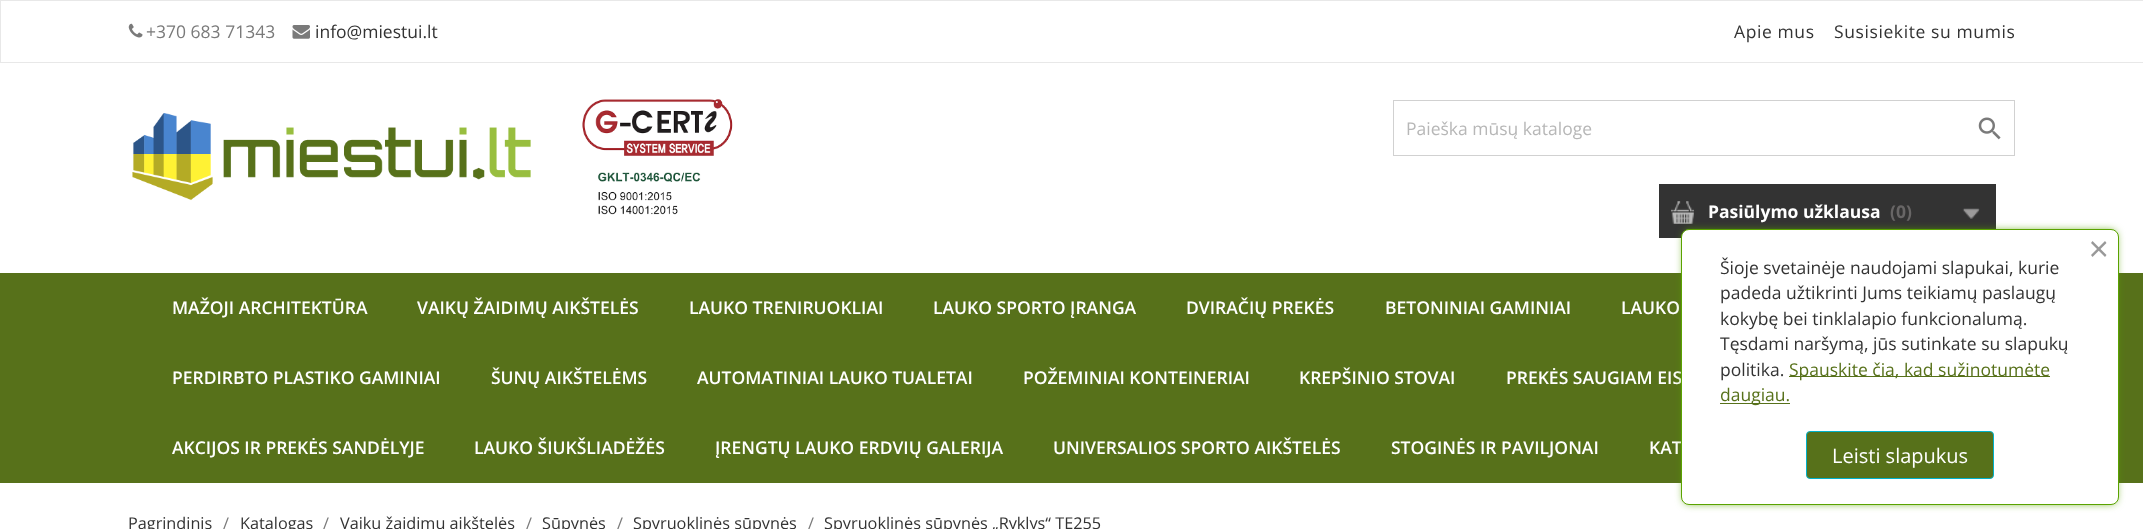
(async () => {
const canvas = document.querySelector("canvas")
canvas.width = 2143
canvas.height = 529
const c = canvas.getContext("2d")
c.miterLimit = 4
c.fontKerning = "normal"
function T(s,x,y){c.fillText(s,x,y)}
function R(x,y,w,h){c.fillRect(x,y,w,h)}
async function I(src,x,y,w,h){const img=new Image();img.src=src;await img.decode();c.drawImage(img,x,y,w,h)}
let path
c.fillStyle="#fff"
R(0,0,2143,529)
c.strokeStyle="#e8e8e8"
c.strokeRect(.5,.5,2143,62)
await I("1.png",128,23,15,15)
c.font="17.5px Open Sans"
c.fillStyle="#7a7a7a"
T("+370 683 71343",146,38)
await I("2.png",292,25,18,14)
c.fillStyle="#333"
T("info@miestui.lt",315,38)
c.letterSpacing="0.6px"
T("Apie mus",1734,38)
T("Susisiekite su mumis",1834,38)
await I("3.png",132,99,601,116)
c.strokeStyle="#d1d1d1"
c.strokeRect(1393.5,100.5,621,55)
c.letterSpacing="0px"
c.fillStyle="#b7b7b7"
T("Paieška mūsų kataloge",1406,135)
await I("4.png",1978,117,23,23)
c.fillStyle="#333"
R(1659,184,337,54)
await I("5.png",1671,201,23,23)
c.font="bold 17.5px Open Sans"
c.fillStyle="#fff"
T("Pasiūlymo užklausa",1708,218)
c.fillStyle="#686666"
T("(0)",1890,218)
await I("6.png",1962,208,18,11)
c.fillStyle="#57711a"
R(0,273,2143,210)
c.font="600 17.5px Open Sans"
c.fillStyle="#fff"
T("MAŽOJI ARCHITEKTŪRA",172,314)
T("VAIKŲ ŽAIDIMŲ AIKŠTELĖS",417,314)
T("LAUKO TRENIRUOKLIAI",689,314)
T("LAUKO SPORTO ĮRANGA",933,314)
T("DVIRAČIŲ PREKĖS",1186,314)
T("BETONINIAI GAMINIAI",1385,314)
T("LAUKO",1621,314)
T("PERDIRBTO PLASTIKO GAMINIAI",172,384)
T("ŠUNŲ AIKŠTELĖMS",491,384)
T("AUTOMATINIAI LAUKO TUALETAI",697,384)
T("POŽEMINIAI KONTEINERIAI",1023,384)
T("KREPŠINIO STOVAI",1299,384)
T("PREKĖS SAUGIAM EIS",1506,384)
T("AKCIJOS IR PREKĖS SANDĖLYJE",172,454)
T("LAUKO ŠIUKŠLIADĖŽĖS",474,454)
T("ĮRENGTŲ LAUKO ERDVIŲ GALERIJA",715,454)
T("UNIVERSALIOS SPORTO AIKŠTELĖS",1053,454)
T("STOGINĖS IR PAVILJONAI",1391,454)
T("KAT",1649,454)
c.font="16.25px Open Sans"
c.fillStyle="#333"
T("Pagrindinis",128,529)
c.fillStyle="#7a7a7a"
T("/",223,529)
c.fillStyle="#333"
T("Katalogas",240,529)
c.fillStyle="#7a7a7a"
T("/",323,529)
c.fillStyle="#333"
T("Vaikų žaidimų aikštelės",340,529)
c.fillStyle="#7a7a7a"
T("/",526,529)
c.fillStyle="#333"
T("Sūpynės",542,529)
c.fillStyle="#7a7a7a"
T("/",617,529)
c.fillStyle="#333"
T("Spyruoklinės sūpynės",633,529)
c.fillStyle="#7a7a7a"
T("/",808,529)
c.fillStyle="#333"
T("Spyruoklinės sūpynės „Ryklys“ TE255",824,529)
c.fillStyle="#5aa300"
c.filter="blur(4.5px)"
c.beginPath()
c.roundRect(1684,231,432,272,5)
c.fill()
c.filter="none"
c.fillStyle="#fff"
c.beginPath()
c.roundRect(1681.5,229.5,437,275,7.5)
c.fill()
c.strokeStyle="#5aa300"
c.stroke()
c.fillStyle="#999"
path = new Path2D("M2091 255l14-14l1.5 2l-14 14z")
c.fill(path)
path = new Path2D("M2092.5 241l14 14l-1.5 2l-14-14z")
c.fill(path)
c.font="17.5px Open Sans"
c.fillStyle="#333"
T("Šioje svetainėje naudojami slapukai, kurie",1720,274)
T("padeda užtikrinti Jums teikiamų paslaugų",1720,299)
T("kokybę bei tinklalapio funkcionalumą.",1720,325)
T("Tęsdami naršymą, jūs sutinkate su slapukų",1720,350)
T("politika.",1720,376)
c.fillStyle="#57711a"
R(1789,376,261,1)
T("Spauskite čia, kad sužinotumėte",1789,376)
R(1720,403,70,1)
T("daugiau.",1720,401)
c.beginPath()
c.roundRect(1806.5,431.5,187,47,3.5)
c.fill()
c.strokeStyle="#00b1c9"
c.stroke()
c.font="20px Open Sans"
c.fillStyle="#fff"
T("Leisti slapukus",1832,463)
})()
